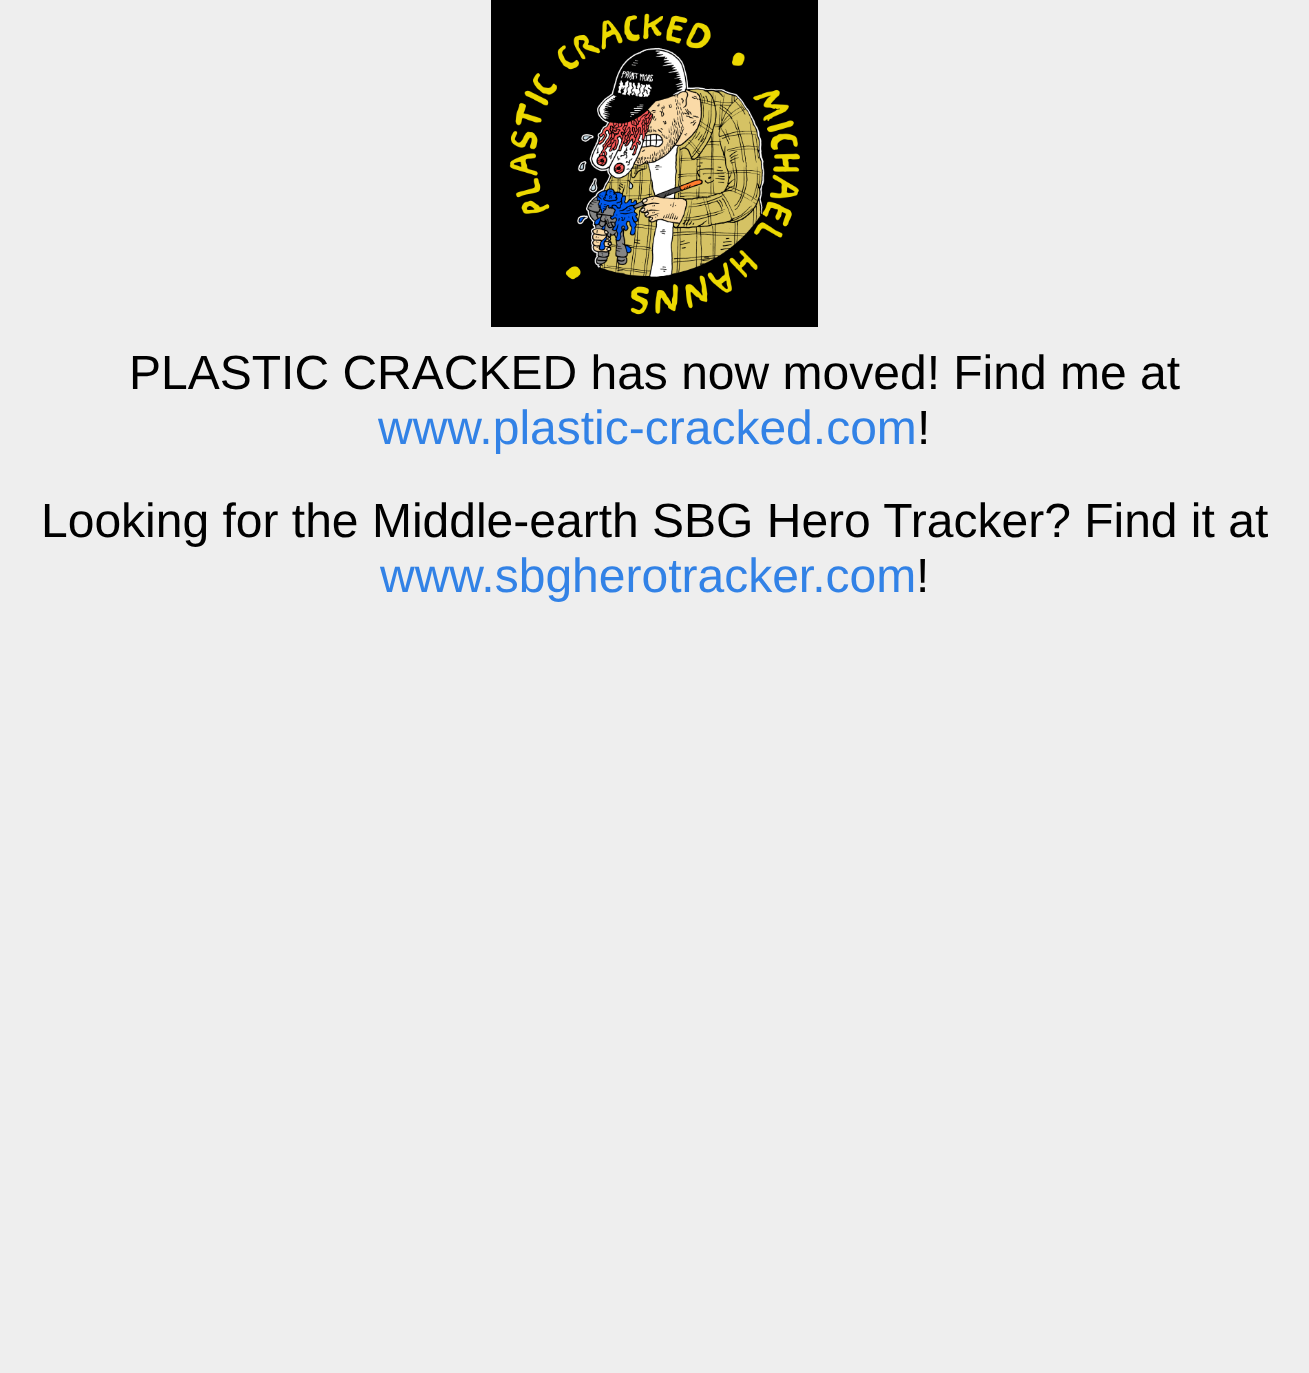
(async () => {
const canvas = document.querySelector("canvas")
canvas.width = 1309
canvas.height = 1373
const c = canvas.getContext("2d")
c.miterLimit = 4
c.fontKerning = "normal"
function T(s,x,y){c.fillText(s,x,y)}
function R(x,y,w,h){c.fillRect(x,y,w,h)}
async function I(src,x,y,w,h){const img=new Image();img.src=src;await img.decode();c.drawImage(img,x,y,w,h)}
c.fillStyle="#eee"
R(0,0,1309,1373)
await I("1.png",491,0,327,327)
c.font="48px Liberation Sans"
c.fillStyle="#000"
T("PLASTIC CRACKED has now moved! Find me at",129,389)
c.fillStyle="#3282e6"
T("www.plastic-cracked.com",378,444)
c.fillStyle="#000"
T("!",917,444)
T("Looking for the Middle-earth SBG Hero Tracker? Find it at",41,537)
c.fillStyle="#3282e6"
T("www.sbgherotracker.com",380,592)
c.fillStyle="#000"
T("!",916,592)
})()
